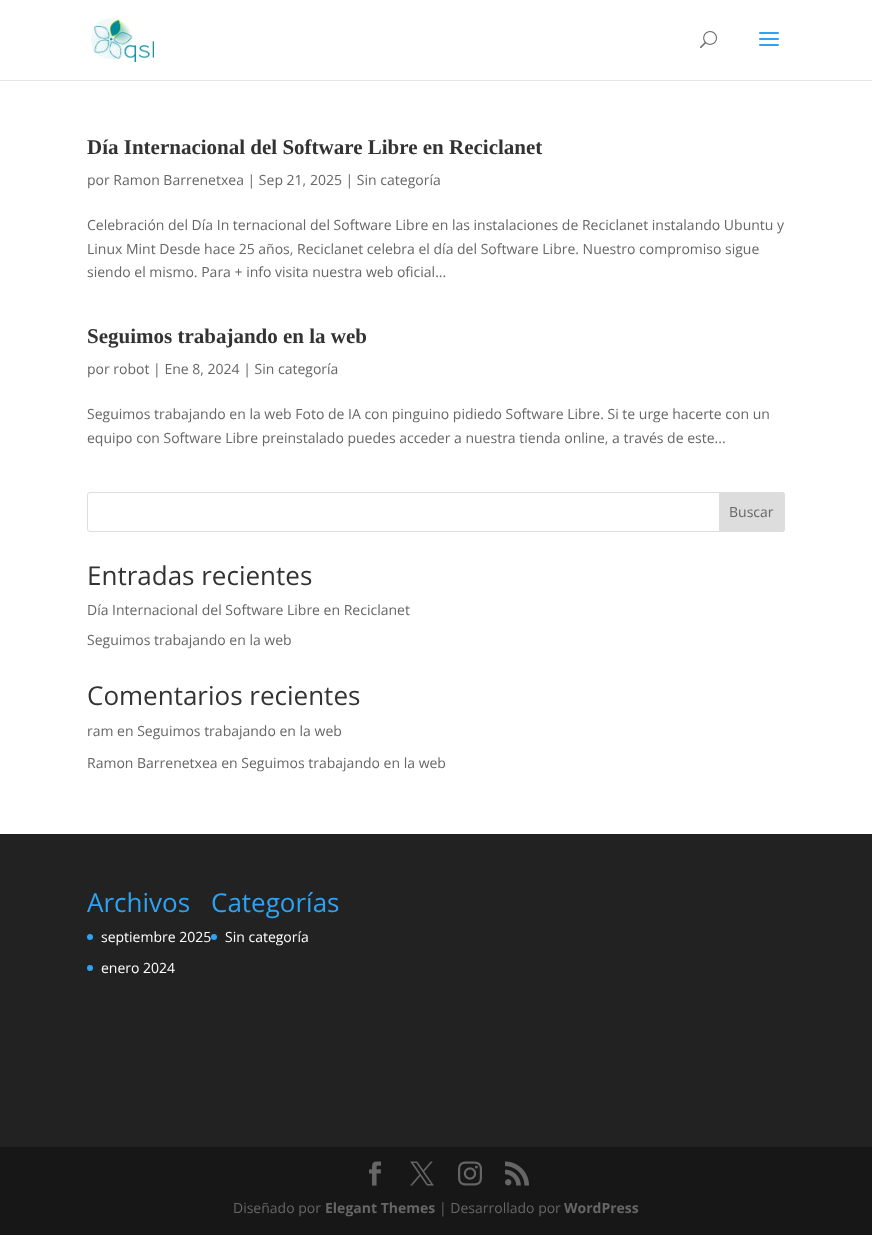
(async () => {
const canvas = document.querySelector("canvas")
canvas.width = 872
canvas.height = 1255
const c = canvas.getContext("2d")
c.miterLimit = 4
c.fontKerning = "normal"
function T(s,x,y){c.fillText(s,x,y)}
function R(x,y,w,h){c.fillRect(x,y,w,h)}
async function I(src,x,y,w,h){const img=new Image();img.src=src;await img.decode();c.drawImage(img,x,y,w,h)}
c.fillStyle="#fff"
R(0,0,872,1255)
c.fillStyle="#e6e6e6"
R(0,80,872,1)
await I("1.png",91,18,63,44)
await I("2.png",700,31,17,18)
await I("3.png",759,32,20,14)
c.font="bold 21px Liberation Serif"
c.fillStyle="#333"
T("Día Internacional del Software Libre en Reciclanet",87,154)
c.font="14px Open Sans"
c.fillStyle="#666"
T("por Ramon Barrenetxea | Sep 21, 2025 | Sin categoría",87,185)
T("Celebración del Día In ternacional del Software Libre en las instalaciones de Reciclanet instalando Ubuntu y",87,230)
T("Linux Mint Desde hace 25 años, Reciclanet celebra el día del Software Libre. Nuestro compromiso sigue",87,254)
T("siendo el mismo. Para + info visita nuestra web oficial...",87,277)
c.font="bold 21px Liberation Serif"
c.fillStyle="#333"
T("Seguimos trabajando en la web",87,343)
c.font="14px Open Sans"
c.fillStyle="#666"
T("por robot | Ene 8, 2024 | Sin categoría",87,374)
T("Seguimos trabajando en la web Foto de IA con pinguino pidiedo Software Libre. Si te urge hacerte con un",87,419)
T("equipo con Software Libre preinstalado puedes acceder a nuestra tienda online, a través de este...",87,443)
c.beginPath()
c.roundRect(87.5,492.5,697,39,2.5)
c.strokeStyle="#ddd"
c.stroke()
c.fillStyle="#ddd"
c.beginPath()
c.roundRect(719.5,492.5,65,39,[0,2.5,2.5,0])
c.fill()
c.stroke()
c.fillStyle="#666"
T("Buscar",729,517)
c.font="26px Open Sans"
c.fillStyle="#333"
T("Entradas recientes",87,585)
c.font="14px Open Sans"
c.fillStyle="#666"
T("Día Internacional del Software Libre en Reciclanet",87,615)
T("Seguimos trabajando en la web",87,645)
c.font="26px Open Sans"
c.fillStyle="#333"
T("Comentarios recientes",87,705)
c.font="14px Open Sans"
c.fillStyle="#666"
T("ram en Seguimos trabajando en la web",87,736)
T("Ramon Barrenetxea en Seguimos trabajando en la web",87,768)
c.fillStyle="#222"
R(0,834,872,313)
c.font="26px Open Sans"
c.fillStyle="#2ea3f2"
T("Archivos",87,912)
c.beginPath()
c.arc(90,937,3,0,7)
c.fill()
c.font="14px Open Sans"
c.fillStyle="#fff"
T("septiembre 2025",101,942)
c.fillStyle="#2ea3f2"
c.beginPath()
c.arc(90,968,3,0,7)
c.fill()
c.fillStyle="#fff"
T("enero 2024",101,973)
c.font="26px Open Sans"
c.fillStyle="#2ea3f2"
T("Categorías",211,912)
c.beginPath()
c.arc(214,937,3,0,7)
c.fill()
c.font="14px Open Sans"
c.fillStyle="#fff"
T("Sin categoría",225,942)
c.fillStyle="#171717"
R(0,1147,872,88)
await I("4.png",369,1161,12,25)
await I("5.png",410,1161,24,25)
await I("6.png",458,1161,24,25)
await I("7.png",505,1161,24,25)
c.fillStyle="#666"
T("Diseñado por",233,1213)
c.font="bold 14px Open Sans"
T("Elegant Themes",325,1213)
c.font="14px Open Sans"
T("| Desarrollado por",439,1213)
c.font="bold 14px Open Sans"
T("WordPress",564,1213)
})()
